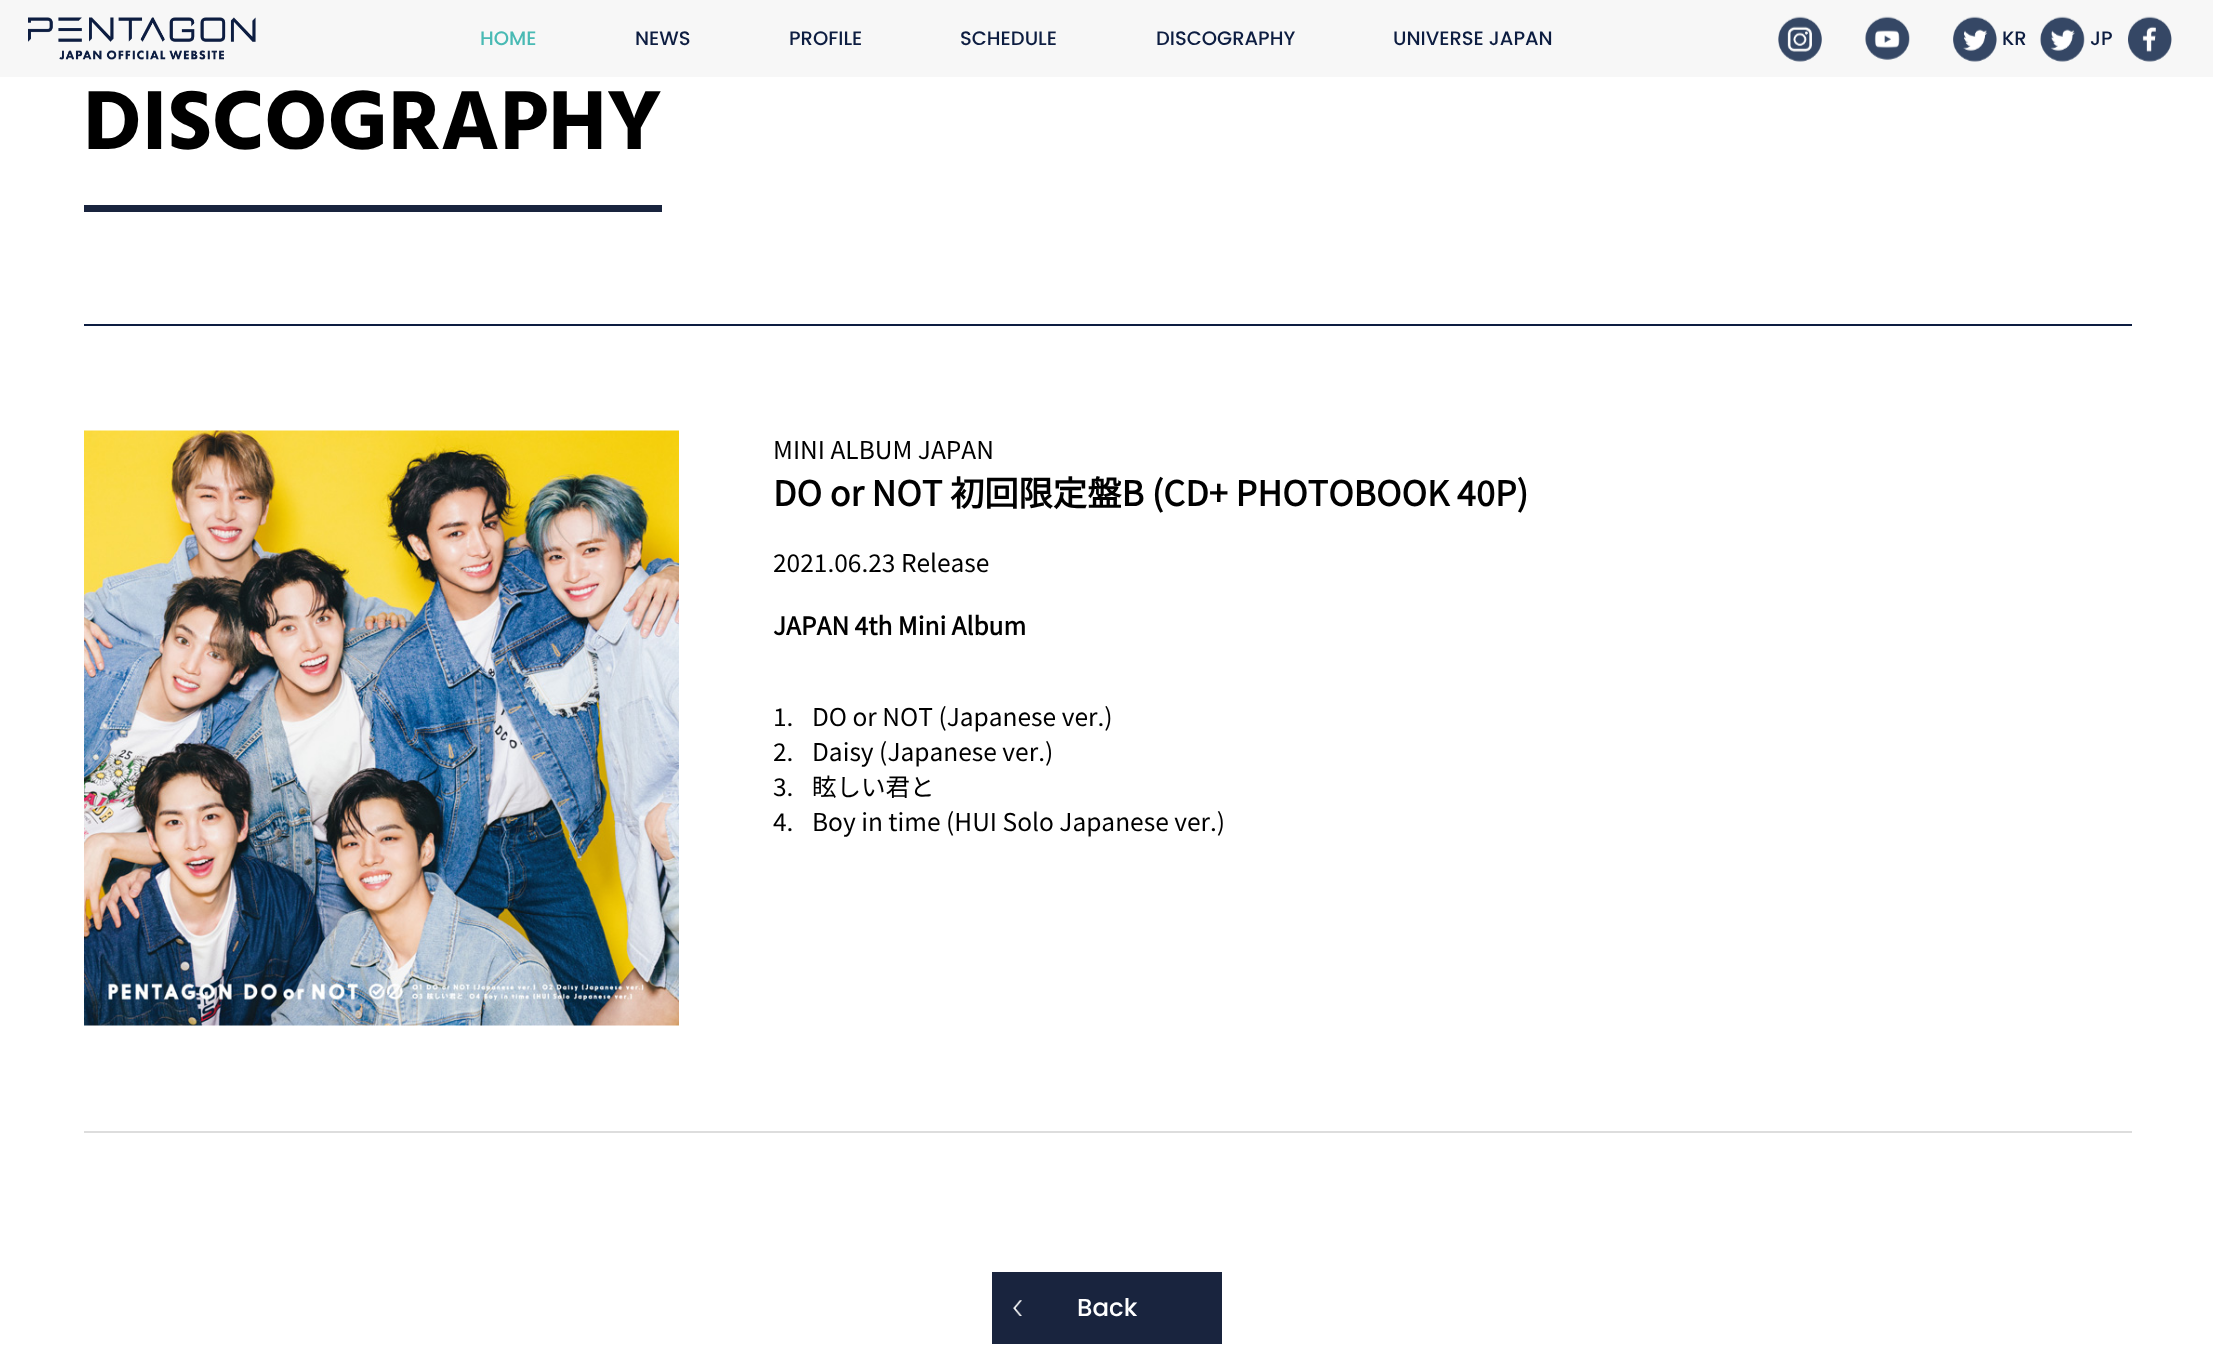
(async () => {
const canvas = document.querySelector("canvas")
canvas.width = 2213
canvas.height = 1349
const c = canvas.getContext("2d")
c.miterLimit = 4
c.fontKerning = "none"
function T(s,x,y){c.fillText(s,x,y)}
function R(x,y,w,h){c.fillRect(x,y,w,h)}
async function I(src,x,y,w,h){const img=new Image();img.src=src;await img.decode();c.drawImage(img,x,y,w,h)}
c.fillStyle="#fff"
R(0,0,2213,1349)
c.fillStyle="#f7f7f7"
R(0,0,2213,77)
await I("1.png",28,17,228,43)
c.font="500 19.5px Poppins"
c.fillStyle="#49bab4"
T("HOME",480,45)
c.fillStyle="#0d1d41"
T("NEWS",635,45)
T("PROFILE",789,45)
T("SCHEDULE",960,45)
T("DISCOGRAPHY",1156,45)
T("UNIVERSE JAPAN",1393,45)
await I("2.png",1778,16,44,46)
await I("3.png",1865,16,45,44)
await I("4.png",1953,16,44,46)
T("KR",2002,45)
await I("5.png",2040,16,45,46)
T("JP",2090,45)
await I("6.png",2128,16,44,46)
c.fillStyle="#19243e"
R(84,205,578,7)
c.font="bold 85.75px Hind"
c.fillStyle="#000"
T("DISCOGRAPHY",83,149)
c.fillStyle="#0d1d41"
R(84,324,2048,2)
c.fillStyle="#ddd"
R(84,1131,2048,2)
await I("7.png",84,430,595,596)
c.font="100 24.5px Noto Sans JP"
c.fillStyle="#000"
T("MINI ALBUM JAPAN",773,459)
c.font="bold 34.3px Noto Sans JP"
T("DO or NOT 初回限定盤B (CD+ PHOTOBOOK 40P)",773,506)
c.font="100 24.5px Noto Sans JP"
T("2021.06.23 Release",773,572)
c.font="bold 24.5px Noto Sans JP"
T("JAPAN 4th Mini Album",773,635)
c.font="100 24.5px Noto Sans JP"
T("1.",773,726)
T("DO or NOT (Japanese ver.)",812,726)
T("2.",773,761)
T("Daisy (Japanese ver.)",812,761)
T("3.",773,796)
T("眩しい君と",812,796)
T("4.",773,831)
T("Boy in time (HUI Solo Japanese ver.)",812,831)
c.fillStyle="#19243e"
R(992,1272,230,72)
await I("8.png",1013,1300,9,16)
c.font="500 24.5px Poppins"
c.fillStyle="#fff"
T("Back",1077,1316)
})()
